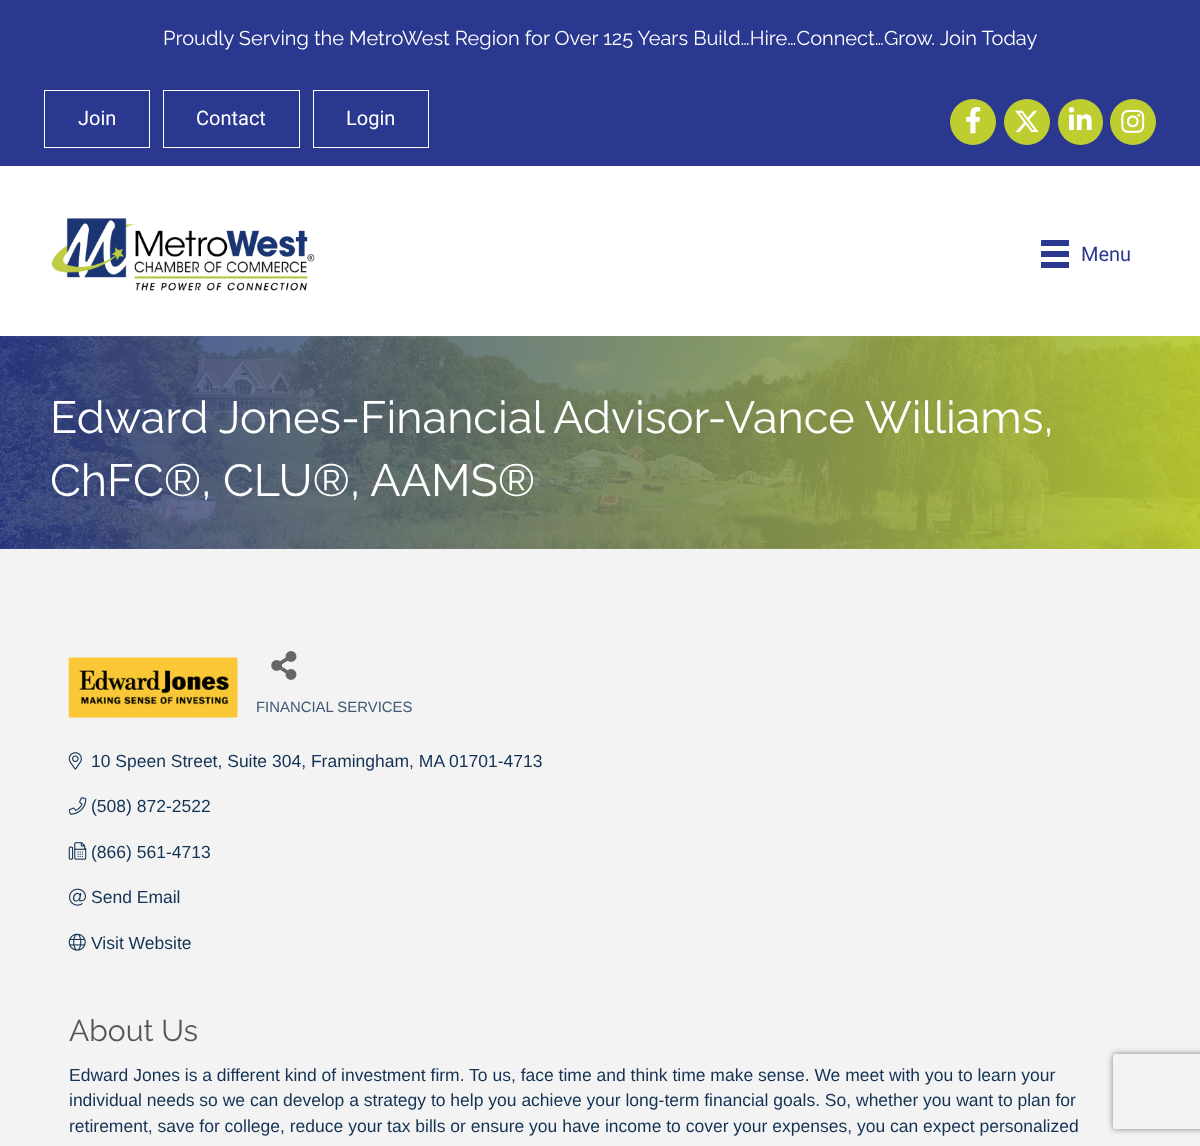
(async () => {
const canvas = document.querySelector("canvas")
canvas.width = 1200
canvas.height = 1146
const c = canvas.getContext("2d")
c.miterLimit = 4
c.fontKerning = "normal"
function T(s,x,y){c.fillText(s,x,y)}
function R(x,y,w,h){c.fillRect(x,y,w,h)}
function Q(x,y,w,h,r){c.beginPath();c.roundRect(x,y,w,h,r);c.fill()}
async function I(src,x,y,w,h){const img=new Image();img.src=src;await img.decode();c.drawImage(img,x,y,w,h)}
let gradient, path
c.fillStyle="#fff"
R(0,0,1200,1146)
c.fillStyle="#2b388f"
R(0,0,1200,166)
c.font="20px Raleway"
c.fillStyle="#fff"
T("Proudly Serving the MetroWest Region for Over 125 Years Build…Hire…Connect…Grow. Join Today",163,45)
c.strokeStyle="#fff"
c.strokeRect(44.5,90.5,105,57)
c.font="20px Roboto"
T("Join",78,125)
c.strokeRect(163.5,90.5,136,57)
T("Contact",196,125)
c.strokeRect(313.5,90.5,115,57)
T("Login",346,125)
c.fillStyle="#bece30"
c.beginPath()
c.arc(973,122,23,0,7)
c.fill()
await I("1.png",966,107,15,27)
c.beginPath()
c.arc(1027,122,23,0,7)
c.fill()
await I("2.png",1015,110,24,23)
Q(1058,99,45,46,22.5)
await I("3.png",1068,107,24,23)
c.beginPath()
c.arc(1133,122,23,0,7)
c.fill()
await I("4.png",1121,109,24,24)
await I("5.png",51,218,264,73)
c.fillStyle="#2b388f"
R(1041,240,28,6)
R(1041,251,28,6)
R(1041,262,28,6)
T("Menu",1081,261)
c.fillStyle="#f3f3f3"
R(0,336,1200,810)
await I("6.png",0,336,1200,213)
gradient = c.createLinearGradient(0,443,1200,442)
gradient.addColorStop(0,"#2b388fd4")
gradient.addColorStop(1,"#bece30eb")
c.fillStyle = gradient
R(0,336,1200,213)
c.font="45px Raleway"
c.fillStyle="#fff"
T("Edward Jones-Financial Advisor-Vance Williams,",50,433)
T("ChFC®, CLU®, AAMS®",50,496)
await I("7.png",68,657,170,61)
await I("8.png",271,651,26,29)
c.font="14.9px Liberation Sans"
c.fillStyle="#415974"
T("FINANCIAL SERVICES",256,712)
await I("9.png",68,752,14,18)
c.font="17.5px Liberation Sans"
c.fillStyle="#143254"
T("10 Speen Street, Suite 304, Framingham, MA",91,767)
T("01701-4713",449,767)
await I("10.png",68,797,19,18)
T("(508) 872-2522",91,812)
await I("11.png",68,842,19,18)
T("(866) 561-4713",91,858)
await I("12.png",69,888,17,18)
T("Send Email",91,903)
await I("13.png",68,933,18,18)
T("Visit Website",91,949)
c.font="30px Raleway"
c.fillStyle="#555"
T("About Us",69,1041)
c.font="17.5px Liberation Sans"
c.fillStyle="#143254"
T("Edward Jones is a different kind of investment firm. To us, face time and think time make sense. We meet with you to learn your",69,1081)
T("individual needs so we can develop a strategy to help you achieve your long-term financial goals. So, whether you want to plan for",69,1106)
T("retirement, save for college, reduce your tax bills or ensure you have income to cover your expenses, you can expect personalized",69,1132)
c.save()
path = new Path2D("M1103 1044h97v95h-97zm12.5 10h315c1.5 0 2.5 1 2.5 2.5v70c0 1.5-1 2.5-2.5 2.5h-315c-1.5 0-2.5-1-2.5-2.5v-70c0-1.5 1-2.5 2.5-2.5z")
c.clip(path,"evenodd")
c.fillStyle="#808080"
c.filter="blur(3px)"
c.beginPath()
c.roundRect(1113,1054,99,75,2.5)
c.fill()
c.filter="none"
c.restore()
})()
